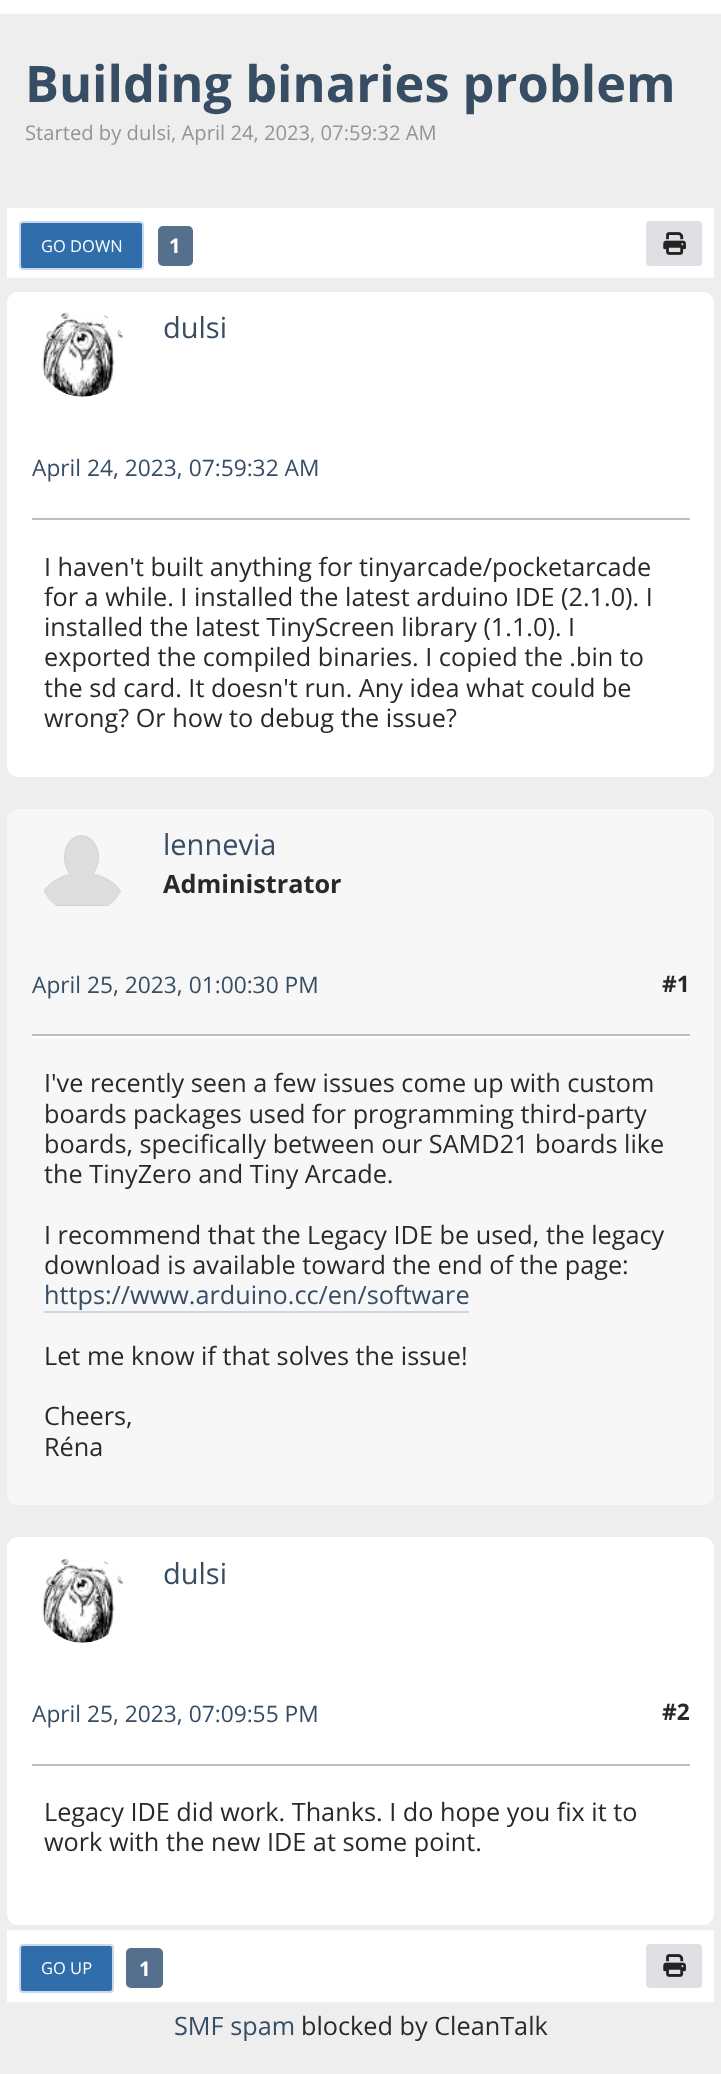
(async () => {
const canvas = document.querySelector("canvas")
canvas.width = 721
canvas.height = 2074
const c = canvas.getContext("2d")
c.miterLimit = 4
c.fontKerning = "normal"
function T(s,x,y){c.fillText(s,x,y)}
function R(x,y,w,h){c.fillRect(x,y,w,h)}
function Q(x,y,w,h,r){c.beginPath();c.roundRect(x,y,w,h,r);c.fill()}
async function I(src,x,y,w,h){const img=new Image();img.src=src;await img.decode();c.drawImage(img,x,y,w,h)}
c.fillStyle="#eee"
R(0,0,721,2074)
c.fillStyle="#fff"
R(0,0,721,14)
c.font="bold 50.5px Open Sans"
c.fillStyle="#364d63"
T("Building binaries problem",25,102)
c.font="20.2px Open Sans"
c.fillStyle="#949494"
T("Started by dulsi, April 24, 2023, 07:59:32 AM",25,140)
c.fillStyle="#fff"
R(7,208,707,70)
c.fillStyle="#306eab"
c.beginPath()
c.roundRect(20,222,123,47,3)
c.fill()
c.strokeStyle="#c7d9eb"
c.lineWidth=2
c.stroke()
c.font="16.5px Open Sans"
c.fillStyle="#fff"
T("GO DOWN",41,252)
c.fillStyle="#54708c"
Q(158,226,35,40,5)
c.font="bold 20.2px Open Sans"
c.fillStyle="#fff"
T("1",169,253)
c.fillStyle="#dee0e3"
Q(646,221,56,45,4)
await I("1.png",663,232,23,23)
c.fillStyle="#fff"
c.beginPath()
c.roundRect(7,292,707,125,[11,11,0,0])
c.fill()
await I("2.png",42,312,81,85)
c.font="29px Open Sans"
c.fillStyle="#364d63"
T("dulsi",163,338)
c.fillStyle="#fff"
c.beginPath()
c.roundRect(7,417,707,360,[0,0,11,11])
c.fill()
c.font="22.75px Open Sans"
c.fillStyle="#364d63"
T("April 24, 2023, 07:59:32 AM",32,476)
c.fillStyle="#bfbfbf"
R(32,518,658,2)
c.font="25.25px Open Sans"
c.fillStyle="#292929"
T("I haven't built anything for tinyarcade/pocketarcade",44,576)
T("for a while. I installed the latest arduino IDE (2.1.0). I",44,606)
T("installed the latest TinyScreen library (1.1.0). I",44,636)
T("exported the compiled binaries. I copied the .bin to",44,666)
T("the sd card. It doesn't run. Any idea what could be",44,697)
T("wrong? Or how to debug the issue?",44,727)
c.fillStyle="#f7f7f7"
c.beginPath()
c.roundRect(7,809,707,126,[11,11,0,0])
c.fill()
await I("3.png",43,835,78,71)
c.font="29px Open Sans"
c.fillStyle="#364d63"
T("lennevia",163,855)
c.font="bold 25.25px Open Sans"
c.fillStyle="#292929"
T("Administrator",163,893)
c.fillStyle="#f7f7f7"
c.beginPath()
c.roundRect(7,935,707,570,[0,0,11,11])
c.fill()
c.font="22.75px Open Sans"
c.fillStyle="#364d63"
T("April 25, 2023, 01:00:30 PM",32,993)
c.font="bold 22.75px Open Sans"
c.fillStyle="#292929"
T("#1",662,992)
c.fillStyle="#fff"
R(32,1036,658,2)
c.fillStyle="#bfbfbf"
R(32,1034,658,2)
c.font="25.25px Open Sans"
c.fillStyle="#292929"
T("I've recently seen a few issues come up with custom",44,1092)
T("boards packages used for programming third-party",44,1123)
T("boards, specifically between our SAMD21 boards like",44,1153)
T("the TinyZero and Tiny Arcade.",44,1183)
T("I recommend that the Legacy IDE be used, the legacy",44,1244)
T("download is available toward the end of the page:",44,1274)
c.fillStyle="#364d63"
T("https://www.arduino.cc/en/software",44,1304)
c.fillStyle="#c7d9eb"
R(44,1311,425,2)
c.fillStyle="#292929"
T("Let me know if that solves the issue!",44,1365)
T("Cheers,",44,1425)
T("Réna",44,1456)
c.fillStyle="#fff"
c.beginPath()
c.roundRect(7,1537,707,126,[11,11,0,0])
c.fill()
await I("4.png",42,1558,81,85)
c.font="29px Open Sans"
c.fillStyle="#364d63"
T("dulsi",163,1584)
c.fillStyle="#fff"
c.beginPath()
c.roundRect(7,1663,707,262,[0,0,11,11])
c.fill()
c.font="22.75px Open Sans"
c.fillStyle="#364d63"
T("April 25, 2023, 07:09:55 PM",32,1722)
c.font="bold 22.75px Open Sans"
c.fillStyle="#292929"
T("#2",662,1720)
c.fillStyle="#bfbfbf"
R(32,1764,658,2)
c.font="25.25px Open Sans"
c.fillStyle="#292929"
T("Legacy IDE did work. Thanks. I do hope you fix it to",44,1821)
T("work with the new IDE at some point.",44,1851)
c.fillStyle="#fff"
R(7,1930,707,72)
c.fillStyle="#306eab"
c.beginPath()
c.roundRect(20,1945,93,47,3)
c.fill()
c.stroke()
c.font="16.5px Open Sans"
c.fillStyle="#fff"
T("GO UP",41,1974)
c.fillStyle="#54708c"
Q(126,1948,37,40,5)
c.font="bold 20.2px Open Sans"
c.fillStyle="#fff"
T("1",139,1976)
c.fillStyle="#dee0e3"
Q(646,1944,56,44,4)
await I("1.png",663,1954,23,23)
c.font="25.25px Open Sans"
c.fillStyle="#364d63"
T("SMF spam",174,2035)
c.fillStyle="#292929"
T("blocked by CleanTalk",301,2035)
})()
